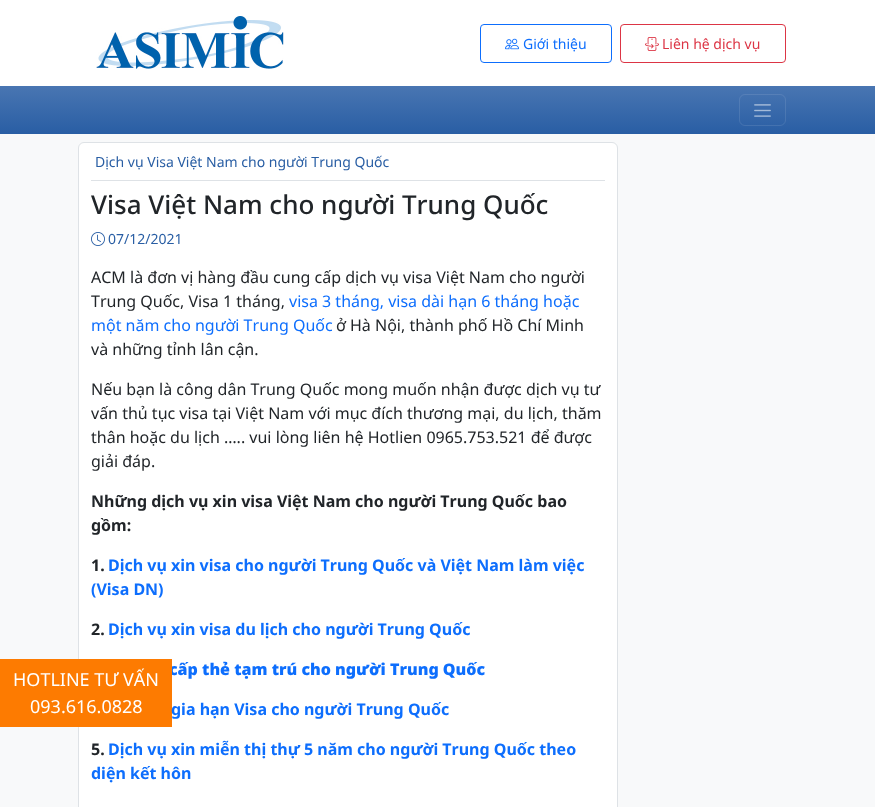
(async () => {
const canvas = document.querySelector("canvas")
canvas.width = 875
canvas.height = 807
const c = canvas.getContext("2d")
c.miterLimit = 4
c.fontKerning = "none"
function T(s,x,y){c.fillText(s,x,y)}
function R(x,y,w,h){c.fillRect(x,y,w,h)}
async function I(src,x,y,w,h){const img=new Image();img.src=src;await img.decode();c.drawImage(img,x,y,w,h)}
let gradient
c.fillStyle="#f8f9fa"
R(0,0,875,807)
c.fillStyle="#fff"
R(0,0,875,86)
await I("1.png",96,16,188,53)
c.beginPath()
c.roundRect(480.5,24.5,131,38,3.5)
c.strokeStyle="#0d6efd"
c.stroke()
await I("2.png",505,38,14,12)
c.font="14px Noto Sans"
c.fillStyle="#0d6efd"
T("Giới thiệu",523,49)
c.beginPath()
c.roundRect(620.5,24.5,165,38,3.5)
c.strokeStyle="#dc3545"
c.stroke()
await I("3.png",645,37,14,14)
c.fillStyle="#dc3545"
T("Liên hệ dịch vụ",662,49)
gradient = c.createLinearGradient(438,86,438,134)
gradient.addColorStop(0,"#4976b2")
gradient.addColorStop(1,"#295ea4")
c.fillStyle = gradient
R(0,86,875,48)
c.beginPath()
c.roundRect(739.5,94.5,46,31,5.5)
c.strokeStyle="#ffffff1a"
c.stroke()
await I("4.png",754,104,17,13)
c.fillStyle="#fff"
c.beginPath()
c.roundRect(78.5,142.5,539,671,5.5)
c.fill()
c.strokeStyle="#dee2e6"
c.stroke()
c.fillStyle="#dee2e6"
R(91,180,514,1)
c.fillStyle="#295ea4"
T("Dịch vụ Visa Việt Nam cho người Trung Quốc",95,167)
c.font="500 26px Noto Sans"
c.fillStyle="#212529"
T("Visa Việt Nam cho người Trung Quốc",91,214)
await I("5.png",91,232,14,14)
c.font="14px Noto Sans"
c.fillStyle="#295ea4"
T("07/12/2021",108,244)
c.font="16px Noto Sans"
c.fillStyle="#212529"
T("ACM là đơn vị hàng đầu cung cấp dịch vụ visa Việt Nam cho người",91,283)
T("Trung Quốc, Visa 1 tháng,",91,307)
c.fillStyle="#0d6efd"
T("visa 3 tháng, visa dài hạn 6 tháng hoặc",289,307)
T("một năm cho người Trung Quốc",91,331)
c.fillStyle="#212529"
T("ở Hà Nội, thành phố Hồ Chí Minh",336,331)
T("và những tỉnh lân cận.",91,355)
T("Nếu bạn là công dân Trung Quốc mong muốn nhận được dịch vụ tư",91,395)
T("vấn thủ tục visa tại Việt Nam với mục đích thương mại, du lịch, thăm",91,419)
T("thân hoặc du lịch ….. vui lòng liên hệ Hotlien 0965.753.521 để được",91,443)
T("giải đáp.",91,467)
c.font="bold 16px Noto Sans"
T("Những dịch vụ xin visa Việt Nam cho người Trung Quốc bao",91,507)
T("gồm:",91,531)
T("1.",91,571)
c.fillStyle="#0d6efd"
T("Dịch vụ xin visa cho người Trung Quốc và Việt Nam làm việc",108,571)
T("(Visa DN)",91,595)
c.fillStyle="#212529"
T("2.",91,635)
c.fillStyle="#0d6efd"
T("Dịch vụ xin visa du lịch cho người Trung Quốc",108,635)
c.font="900 16px Noto Sans"
T("cấp thẻ tạm trú cho người Trung Quốc",169,675)
c.fillStyle="#fd7b01"
R(0,659,172,68)
c.font="18px Noto Sans"
c.fillStyle="#fff"
T("HOTLINE TƯ VẤN",13,686)
T("093.616.0828",30,713)
c.font="bold 16px Noto Sans"
c.fillStyle="#0d6efd"
T("gia hạn Visa cho người Trung Quốc",171,715)
c.fillStyle="#212529"
T("5.",91,755)
c.fillStyle="#0d6efd"
T("Dịch vụ xin miễn thị thự 5 năm cho người Trung Quốc theo",108,755)
T("diện kết hôn",91,779)
})()
